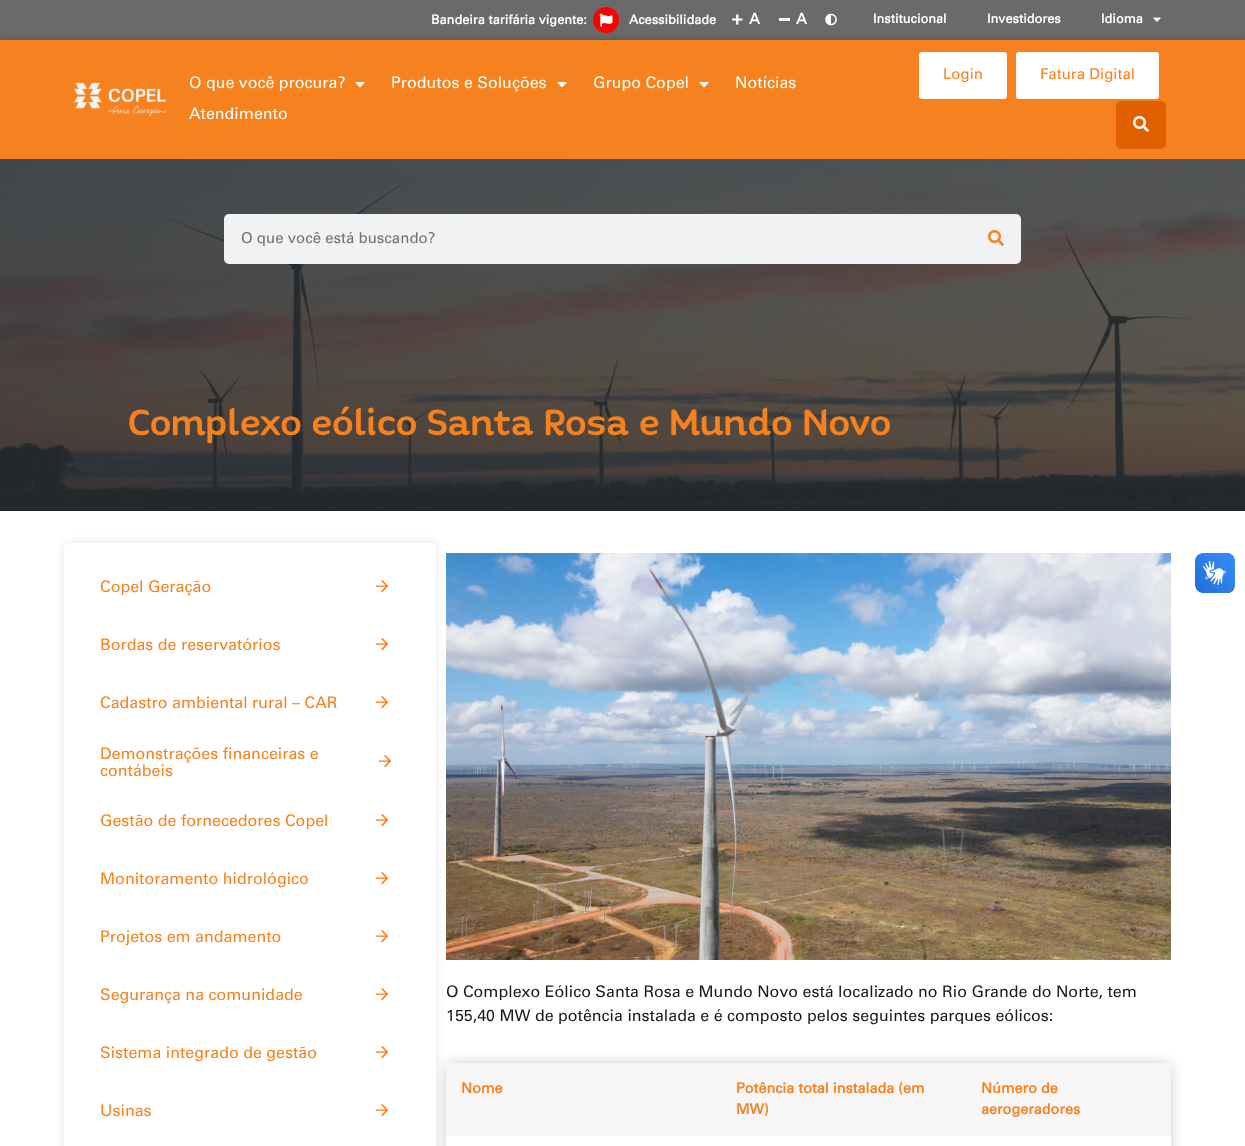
(async () => {
const canvas = document.querySelector("canvas")
canvas.width = 1245
canvas.height = 1146
const c = canvas.getContext("2d")
c.miterLimit = 4
c.fontKerning = "normal"
function T(s,x,y){c.fillText(s,x,y)}
function R(x,y,w,h){c.fillRect(x,y,w,h)}
function Q(x,y,w,h,r){c.beginPath();c.roundRect(x,y,w,h,r);c.fill()}
async function I(src,x,y,w,h){const img=new Image();img.src=src;await img.decode();c.drawImage(img,x,y,w,h)}
let path
c.fillStyle="#fff"
R(0,0,1245,1146)
c.fillStyle="#6a6a6a"
R(0,0,1245,40)
c.font="bold 12.75px Univers"
c.fillStyle="#fff"
T("Bandeira tarifária vigente:",431,24)
c.fillStyle="#f00"
c.beginPath()
c.arc(606,20,13,0,7)
c.fill()
await I("1.png",599,13,14,14)
c.fillStyle="#fff"
T("Acessibilidade",629,24)
await I("2.png",732,14,11,11)
c.font="bold 15px Univers"
T("A",749,24)
R(779,18,11,3)
T("A",796,24)
await I("3.png",825,13,12,13)
c.font="bold 12.75px Univers"
T("Institucional",873,23)
T("Investidores",987,23)
T("Idioma",1101,23)
await I("4.png",1153,17,8,5)
c.fillStyle="#00000033"
c.filter="blur(5px)"
c.beginPath()
c.rect(0,40,1245,119)
c.fill()
c.filter="none"
c.fillStyle="#f5821e"
R(0,40,1245,119)
await I("5.png",74,83,92,33)
c.font="16px Univers"
c.fillStyle="#fff"
T("O que você procura?",189,88)
await I("6.png",355,82,10,6)
T("Produtos e Soluções",391,88)
await I("6.png",557,82,10,6)
T("Grupo Copel",593,88)
await I("6.png",699,82,10,6)
T("Notícias",735,88)
T("Atendimento",189,119)
c.beginPath()
c.roundRect(918,51,90,49,4)
c.fill()
c.strokeStyle="#f5821e"
c.lineWidth=2
c.stroke()
c.font="15px Univers"
c.fillStyle="#f5821e"
T("Login",943,79)
c.fillStyle="#fff"
c.beginPath()
c.roundRect(1015,51,145,49,4)
c.fill()
c.stroke()
c.fillStyle="#f5821e"
T("Fatura Digital",1040,79)
c.fillStyle="#e06000"
c.beginPath()
c.roundRect(1116.5,101.5,49,47,4.5)
c.fill()
c.strokeStyle="#e06000"
c.lineWidth=1
c.stroke()
await I("7.png",1133,116,16,16)
await I("8.png",0,159,1245,352)
c.fillStyle="#f1f2f3"
Q(224,214,797,50,5)
c.fillStyle="#6d7275"
T("O que você está buscando?",241,243)
await I("9.png",988,230,16,16)
c.font="500 40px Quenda"
c.fillStyle="#f5821e"
T("Complexo eólico Santa Rosa e Mundo Novo",128,435)
c.save()
path = new Path2D("M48 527h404v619h-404zm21 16h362c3 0 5 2 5 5v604c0 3-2 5-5 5h-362c-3 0-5-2-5-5v-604c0-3 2-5 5-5z")
c.clip(path,"evenodd")
c.fillStyle="#0000001a"
c.filter="blur(5px)"
c.beginPath()
c.roundRect(64,543,372,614,5)
c.fill()
c.filter="none"
c.restore()
c.font="16px Univers"
T("Copel Geração",100,592)
await I("10.png",375,580,14,13)
T("Bordas de reservatórios",100,650)
await I("10.png",375,638,14,13)
T("Cadastro ambiental rural – CAR",100,708)
await I("10.png",375,696,14,13)
T("Demonstrações financeiras e",100,759)
await I("10.png",378,755,14,13)
T("contábeis",100,776)
T("Gestão de fornecedores Copel",100,826)
await I("10.png",375,814,14,13)
T("Monitoramento hidrológico",100,884)
await I("10.png",375,872,14,13)
T("Projetos em andamento",100,942)
await I("10.png",375,930,14,13)
T("Segurança na comunidade",100,1000)
await I("10.png",375,988,14,13)
T("Sistema integrado de gestão",100,1058)
await I("10.png",375,1046,14,13)
T("Usinas",100,1116)
await I("10.png",375,1104,14,13)
await I("11.png",446,553,725,407)
c.fillStyle="#151c21"
T("O Complexo Eólico Santa Rosa e Mundo Novo está localizado no Rio Grande do Norte, tem",446,997)
T("155,40 MW de potência instalada e é composto pelos seguintes parques eólicos:",446,1021)
c.save()
path = new Path2D("M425 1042h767v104h-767zm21 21h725v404h-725z")
c.clip(path,"evenodd")
c.fillStyle="#0000004d"
c.filter="blur(7.5px)"
c.beginPath()
c.rect(449,1066,719,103)
c.fill()
c.filter="none"
c.restore()
c.fillStyle="#f6f6f6"
R(446,1063,725,73)
c.font="bold 14.4px Univers"
c.fillStyle="#f5821e"
T("Nome",461,1093)
T("Potência total instalada (em",736,1093)
T("MW)",736,1114)
T("Número de",981,1093)
T("aerogeradores",981,1114)
await I("12.png",1195,553,40,40)
await I("13.png",1195,553,40,40)
})()
